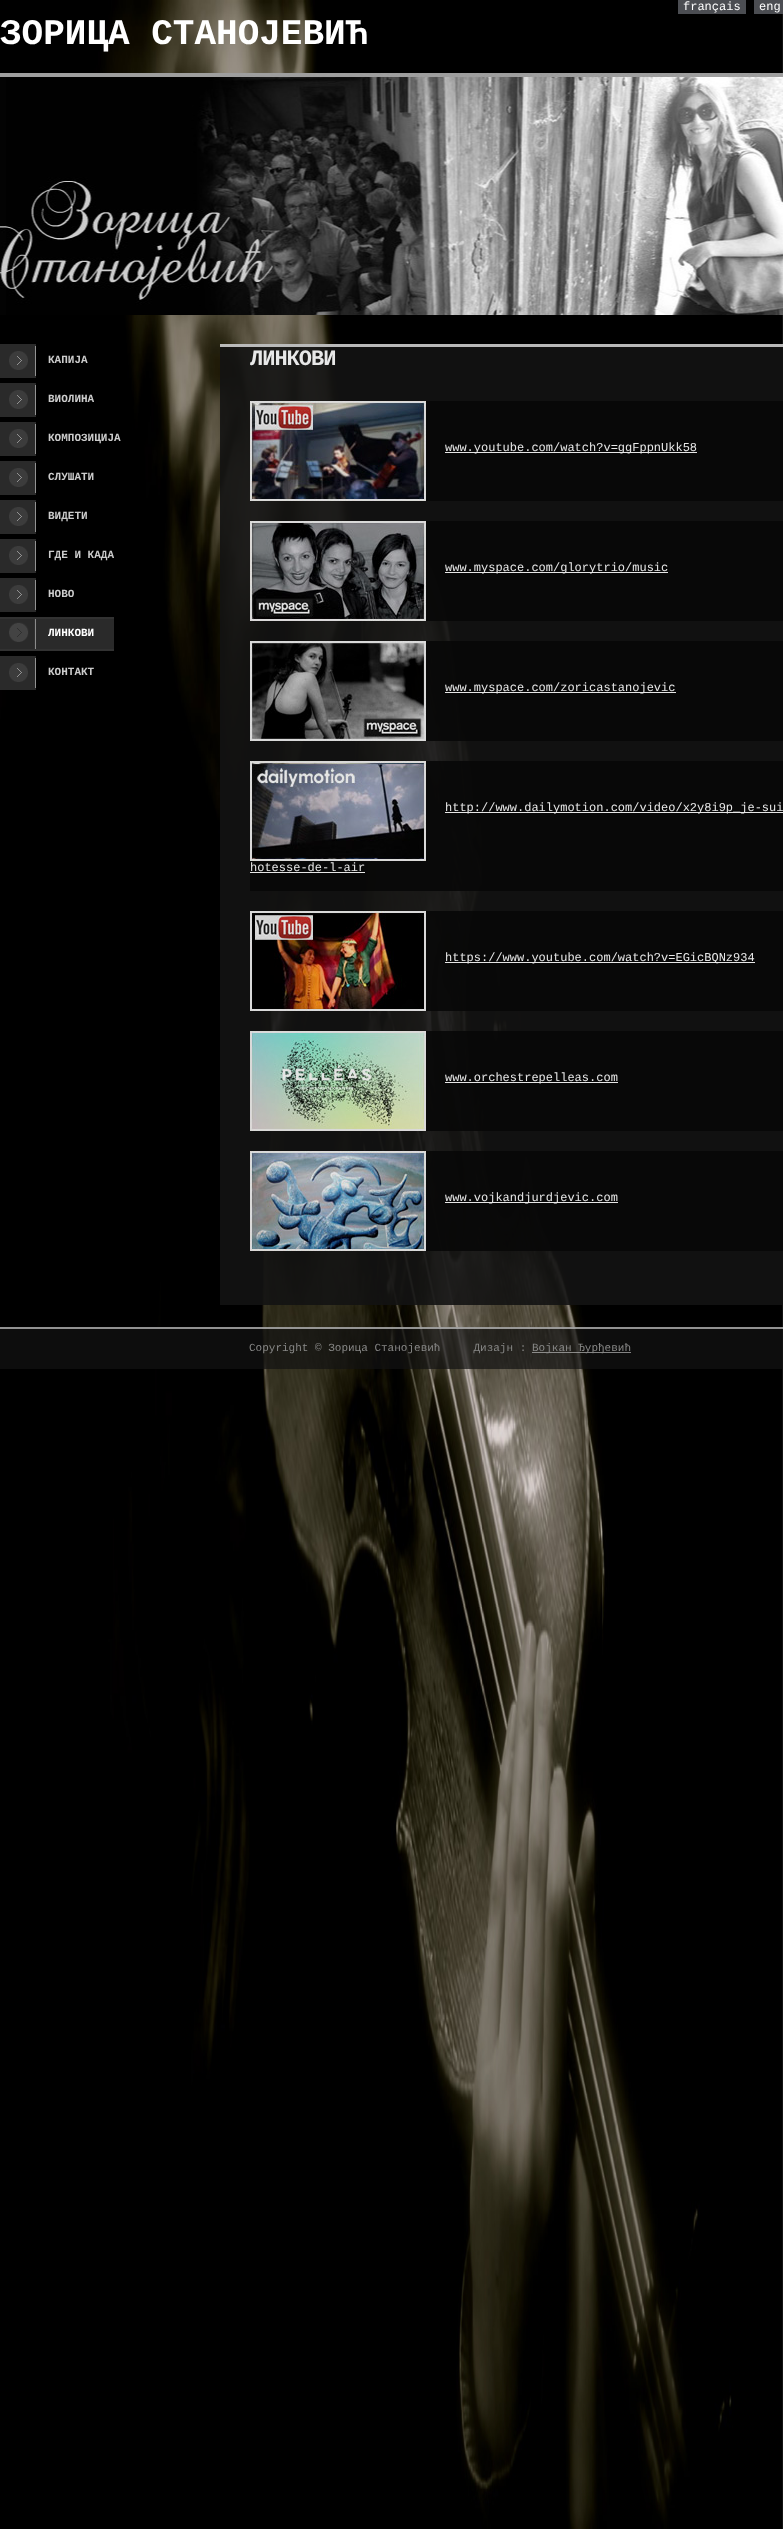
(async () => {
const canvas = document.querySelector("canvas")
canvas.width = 783
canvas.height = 2529
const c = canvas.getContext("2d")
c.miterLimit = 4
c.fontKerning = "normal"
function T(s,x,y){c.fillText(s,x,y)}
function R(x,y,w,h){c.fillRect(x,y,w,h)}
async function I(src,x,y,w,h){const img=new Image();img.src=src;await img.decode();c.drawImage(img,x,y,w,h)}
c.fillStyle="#fff"
R(0,0,783,2529)
await I("1.png",0,0,783,2529)
c.fillStyle="#4b4d52"
R(678,0,68,14)
c.font="12px Liberation Mono"
c.fillStyle="#fff"
T("français",683,10)
c.fillStyle="#4b4d52"
R(754,0,29,14)
c.fillStyle="#fff"
T("eng",759,10)
c.font="bold 36px Liberation Mono"
T("ЗОРИЦА СТАНОЈЕВИЋ",0,44)
await I("2.png",0,73,6,242)
await I("3.png",6,73,777,242)
await I("4.png",0,344,36,34)
c.font="bold 11px Liberation Mono"
c.fillStyle="#ccc"
T("КАПИЈА",48,363)
await I("4.png",0,383,36,34)
T("ВИОЛИНА",48,402)
await I("4.png",0,422,36,34)
T("КОМПОЗИЦИЈА",48,441)
await I("4.png",0,461,36,34)
T("СЛУШАТИ",48,480)
await I("4.png",0,500,36,34)
T("ВИДЕТИ",48,519)
await I("4.png",0,539,36,34)
T("ГДЕ И КАДА",48,558)
await I("4.png",0,578,36,34)
T("НОВО",48,597)
c.fillStyle="#323232"
R(0,617,114,34)
await I("5.png",0,619,114,30)
c.fillStyle="#fff"
T("ЛИНКОВИ",48,636)
await I("4.png",0,656,36,34)
c.fillStyle="#ccc"
T("КОНТАКТ",48,675)
c.fillStyle="#131313e6"
R(220,344,562,961)
c.fillStyle="#cccccce6"
R(220,344,563,3)
c.letterSpacing="-1px"
c.font="bold 22px Liberation Mono"
c.fillStyle="#e8e8e8"
T("ЛИНКОВИ",250,365)
c.fillStyle="#080808e6"
R(250,401,533,100)
await I("6.png",250,401,176,100)
c.fillStyle="#e6e6e6"
R(445,452,252,1)
c.letterSpacing="0px"
c.font="12px Liberation Mono"
c.fillStyle="#e8e8e8"
T("www.youtube.com/watch?v=ggFppnUkk58",445,451)
c.fillStyle="#080808e6"
R(250,521,533,100)
await I("7.png",250,521,176,100)
c.fillStyle="#e6e6e6"
R(445,572,223,1)
c.fillStyle="#e8e8e8"
T("www.myspace.com/glorytrio/music",445,571)
c.fillStyle="#080808e6"
R(250,641,533,100)
await I("8.png",250,641,176,100)
c.fillStyle="#e6e6e6"
R(445,692,231,1)
c.fillStyle="#e8e8e8"
T("www.myspace.com/zoricastanojevic",445,691)
c.fillStyle="#080808e6"
R(250,761,533,130)
await I("9.png",250,761,176,100)
c.fillStyle="#e6e6e6"
R(445,812,338,1)
c.fillStyle="#e8e8e8"
T("http://www.dailymotion.com/video/x2y8i9p_je-sui",445,811)
T("hotesse-de-l-air",250,871)
c.fillStyle="#e6e6e6"
R(250,872,115,1)
c.fillStyle="#080808e6"
R(250,911,533,100)
await I("10.png",250,911,176,100)
c.fillStyle="#e6e6e6"
R(445,962,310,1)
c.fillStyle="#e8e8e8"
T("https://www.youtube.com/watch?v=EGicBQNz934",445,961)
c.fillStyle="#080808e6"
R(250,1031,533,100)
await I("11.png",250,1031,176,100)
c.fillStyle="#e6e6e6"
R(445,1082,173,1)
c.fillStyle="#e8e8e8"
T("www.orchestrepelleas.com",445,1081)
c.fillStyle="#080808e6"
R(250,1151,533,100)
await I("12.png",250,1151,176,100)
c.fillStyle="#e6e6e6"
R(445,1202,173,1)
c.fillStyle="#e8e8e8"
T("www.vojkandjurdjevic.com",445,1201)
c.fillStyle="#131313b3"
R(0,1327,782,42)
c.fillStyle="#ccccccb3"
R(0,1327,783,2)
c.font="11px Liberation Mono"
c.fillStyle="#888887"
T("Copyright © Зорица Станојевић     Дизајн :",249,1351)
c.fillStyle="#b7b7b7b3"
R(532,1352,99,1)
c.fillStyle="#888887"
T("Војкан Ђурђевић",532,1351)
})()
